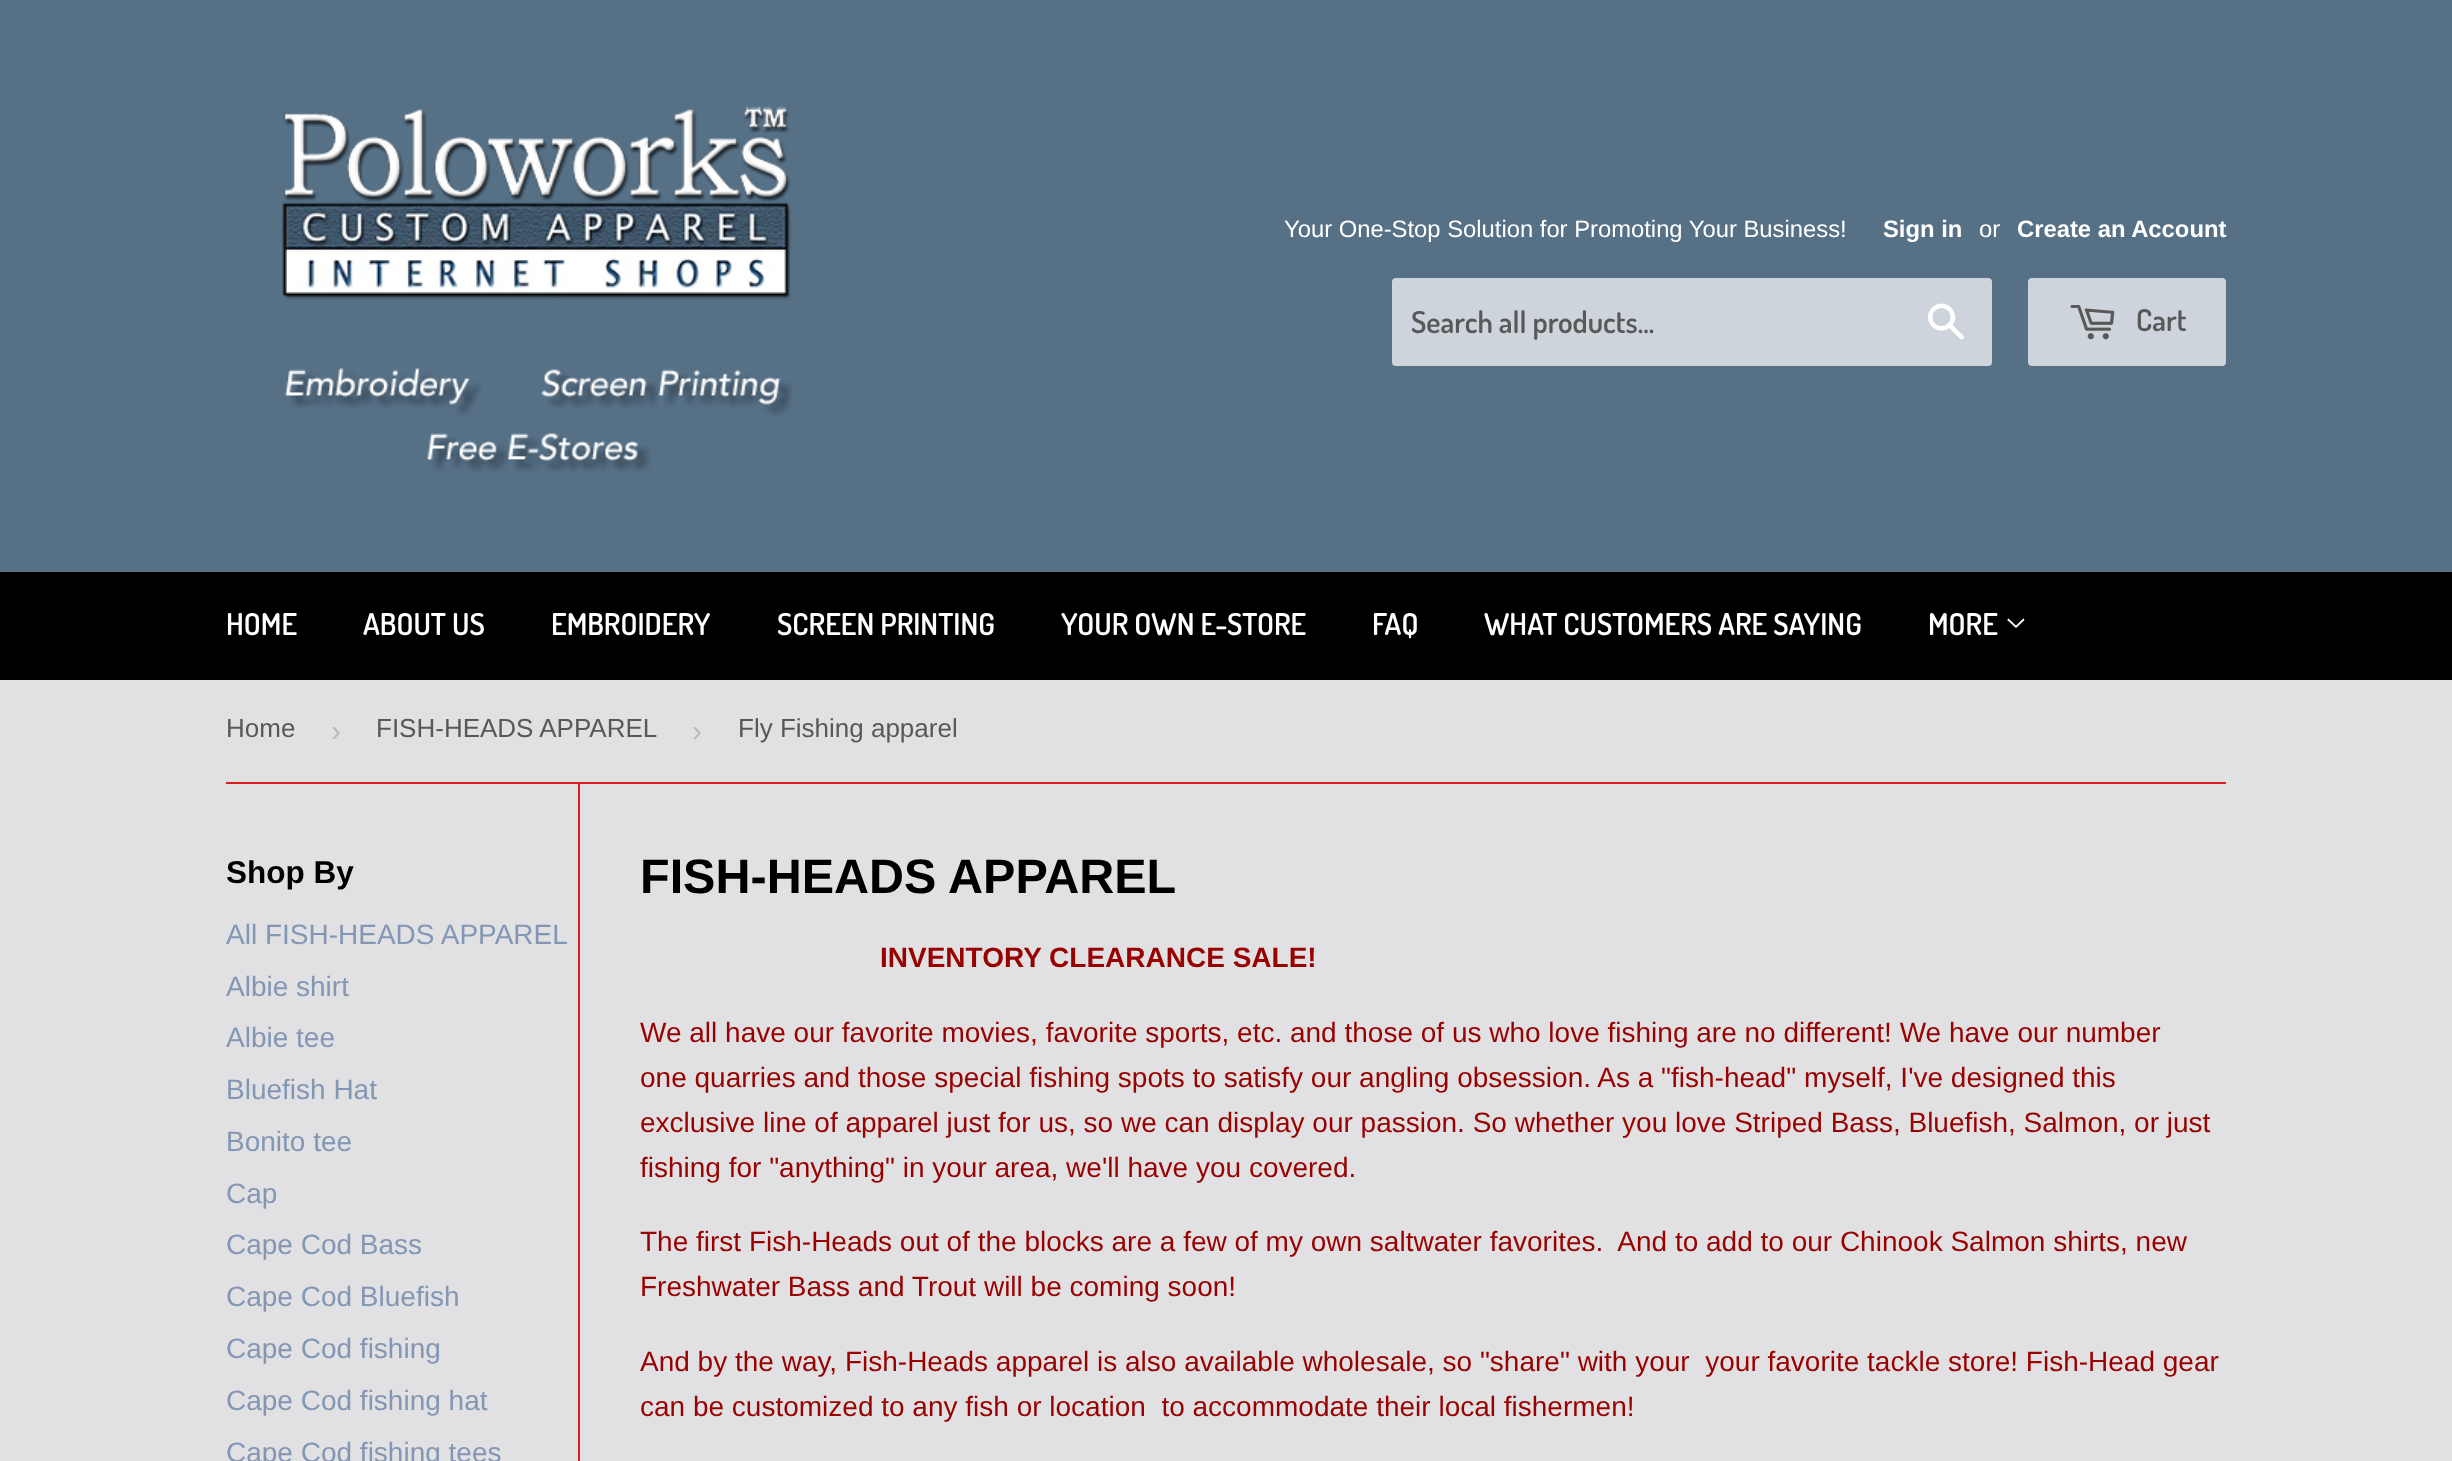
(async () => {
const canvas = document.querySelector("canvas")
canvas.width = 2452
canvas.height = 1461
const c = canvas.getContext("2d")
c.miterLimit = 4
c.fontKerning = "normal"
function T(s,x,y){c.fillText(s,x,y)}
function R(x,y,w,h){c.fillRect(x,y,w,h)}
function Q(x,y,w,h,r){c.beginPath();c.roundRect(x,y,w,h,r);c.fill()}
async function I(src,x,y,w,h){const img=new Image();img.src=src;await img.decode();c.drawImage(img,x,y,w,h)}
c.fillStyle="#e1e1e3"
R(0,0,2452,1461)
c.fillStyle="#567086"
R(0,0,2452,572)
await I("1.png",282,106,510,366)
c.font="23.8px Liberation Sans"
c.fillStyle="#fff"
T("Your One-Stop Solution for Promoting Your Business!",1284,237)
c.font="bold 23.8px Liberation Sans"
T("Sign in",1883,237)
c.font="23.8px Liberation Sans"
T("or",1979,237)
c.font="bold 23.8px Liberation Sans"
T("Create an Account",2017,237)
c.fillStyle="#ced4db"
Q(1392,278,600,88,4)
c.font="600 30px Dosis"
c.fillStyle="#585858"
T("Search all products...",1411,333)
await I("2.png",1928,303,36,37)
c.fillStyle="#ced4db"
Q(2028,278,198,88,4)
await I("3.png",2070,305,45,35)
c.fillStyle="#585858"
T("Cart",2136,331)
c.fillStyle="#000"
R(0,572,2452,108)
c.fillStyle="#fff"
T("HOME",226,635)
T("ABOUT US",363,635)
T("EMBROIDERY",551,635)
T("SCREEN PRINTING",777,635)
T("YOUR OWN E-STORE",1061,635)
T("FAQ",1372,635)
T("WHAT CUSTOMERS ARE SAYING",1484,635)
T("MORE",1928,635)
await I("4.png",2007,618,18,10)
c.fillStyle="#d91e1e"
R(226,782,2000,2)
c.font="26px Liberation Sans"
c.fillStyle="#585858"
T("Home",226,737)
c.font="30px Liberation Sans"
c.fillStyle="#bbb"
T("›",331,741)
c.font="26px Liberation Sans"
c.fillStyle="#585858"
T("FISH-HEADS APPAREL",376,737)
c.font="30px Liberation Sans"
c.fillStyle="#bbb"
T("›",692,741)
c.font="26px Liberation Sans"
c.fillStyle="#585858"
T("Fly Fishing apparel",738,737)
c.font="bold 31.5px Liberation Sans"
c.fillStyle="#000"
T("Shop By",226,883)
c.font="28px Liberation Sans"
c.fillStyle="#8397b5"
T("All FISH-HEADS APPAREL",226,944)
T("Albie shirt",226,996)
T("Albie tee",226,1047)
T("Bluefish Hat",226,1099)
T("Bonito tee",226,1151)
T("Cap",226,1203)
T("Cape Cod Bass",226,1254)
T("Cape Cod Bluefish",226,1306)
T("Cape Cod fishing",226,1358)
T("Cape Cod fishing hat",226,1410)
T("Cape Cod fishing tees",226,1462)
c.fillStyle="#d91e1e"
R(578,784,2,677)
c.font="bold 48.5px Liberation Sans"
c.fillStyle="#000"
T("FISH-HEADS APPAREL",640,893)
c.font="bold 28px Liberation Sans"
c.fillStyle="#900"
T("INVENTORY CLEARANCE SALE!",880,967)
c.font="28px Liberation Sans"
T("We all have our favorite movies, favorite sports, etc. and those of us who love fishing are no different! We have our number",640,1042)
T("one quarries and those special fishing spots to satisfy our angling obsession. As a \"fish-head\" myself, I've designed this",640,1087)
T("exclusive line of apparel just for us, so we can display our passion. So whether you love Striped Bass, Bluefish, Salmon, or just",640,1132)
T("fishing for \"anything\" in your area, we'll have you covered.",640,1177)
T("The first Fish-Heads out of the blocks are a few of my own saltwater favorites.  And to add to our Chinook Salmon shirts, new",640,1251)
T("Freshwater Bass and Trout will be coming soon!",640,1296)
T("And by the way, Fish-Heads apparel is also available wholesale, so \"share\" with your  your favorite tackle store! Fish-Head gear",640,1371)
T("can be customized to any fish or location  to accommodate their local fishermen!",640,1416)
})()
